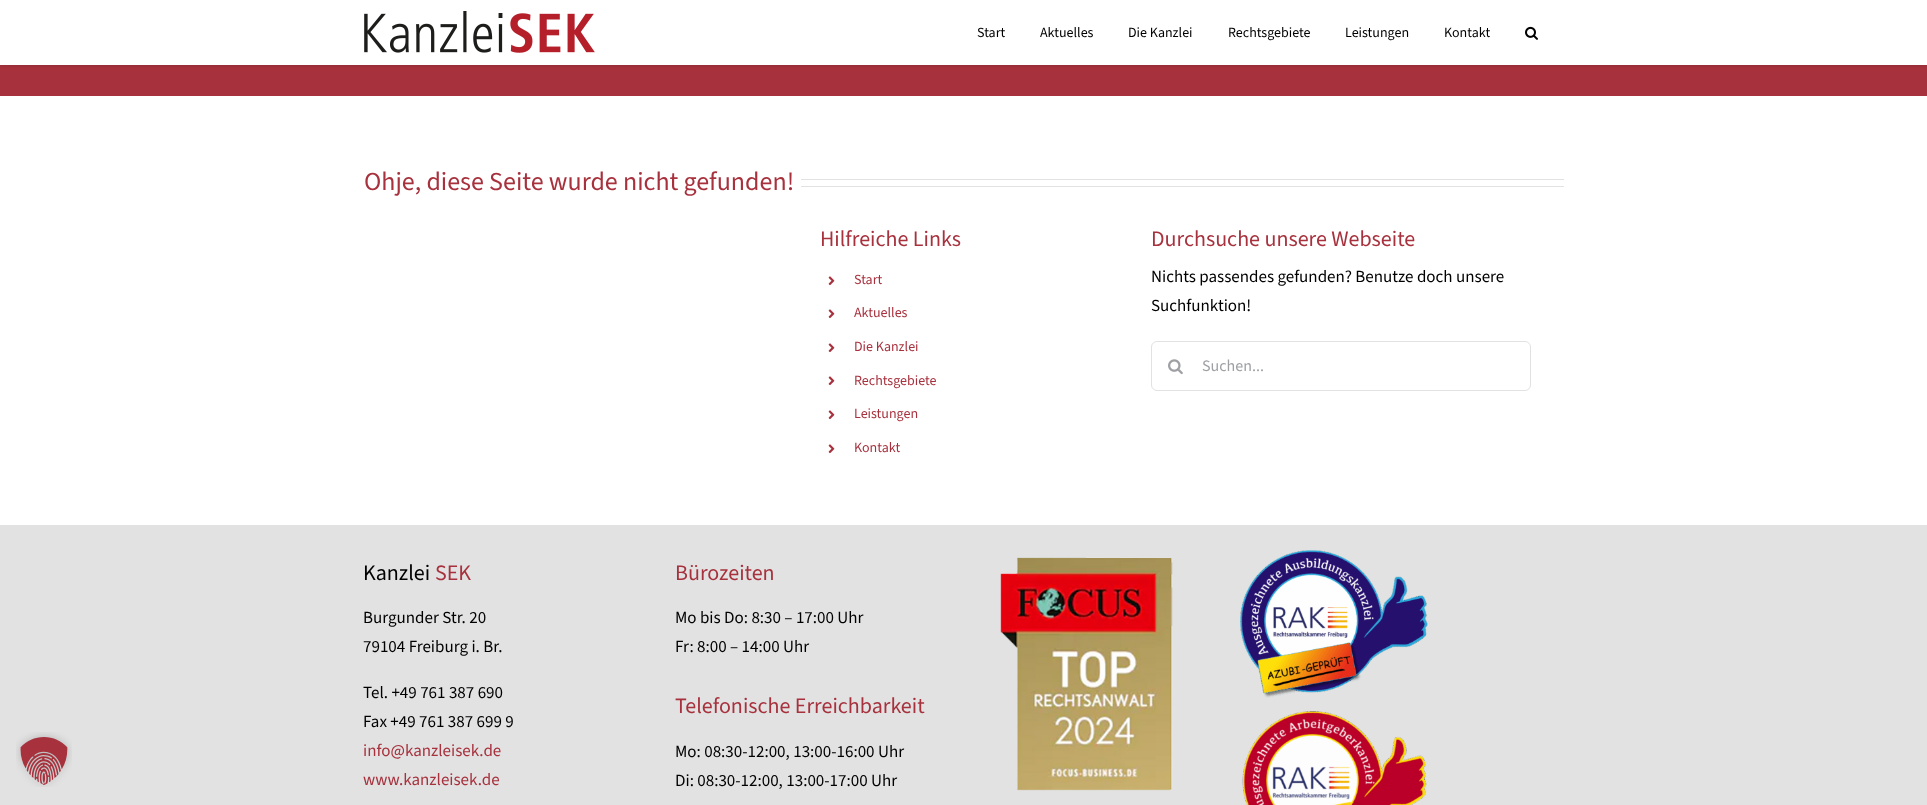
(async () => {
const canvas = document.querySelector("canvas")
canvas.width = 1927
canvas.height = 805
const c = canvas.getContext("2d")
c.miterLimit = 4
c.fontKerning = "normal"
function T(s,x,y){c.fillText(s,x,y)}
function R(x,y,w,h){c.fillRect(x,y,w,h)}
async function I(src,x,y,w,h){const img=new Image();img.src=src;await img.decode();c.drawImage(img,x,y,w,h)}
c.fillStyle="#fff"
R(0,0,1927,805)
c.fillStyle="#e2e2e2"
R(0,525,1927,280)
await I("1.png",16,732,56,55)
c.fillStyle="#a7323e"
R(0,65,1927,31)
c.fillStyle="#0000001f"
c.filter="blur(1.5px)"
c.beginPath()
c.rect(0,1,1927,65)
c.fill()
c.filter="none"
c.fillStyle="#fff"
R(0,0,1927,65)
await I("2.png",364,11,231,42)
c.font="14px 'Source Sans 3'"
c.fillStyle="#000"
T("Start",977,37)
T("Aktuelles",1040,37)
T("Die Kanzlei",1128,37)
T("Rechtsgebiete",1228,37)
T("Leistungen",1345,37)
T("Kontakt",1444,37)
await I("3.png",1525,26,13,14)
c.font="26px 'Source Sans 3'"
c.fillStyle="#a7323e"
T("Ohje, diese Seite wurde nicht gefunden!",364,190)
c.fillStyle="#e2e2e2"
R(801,179,763,1)
R(801,186,763,1)
c.font="22px 'Source Sans 3'"
c.fillStyle="#a7323e"
T("Hilfreiche Links",820,246)
await I("4.png",828,276,7,10)
c.font="14px 'Source Sans 3'"
T("Start",854,284)
await I("4.png",828,309,7,10)
T("Aktuelles",854,317)
await I("4.png",828,343,7,10)
T("Die Kanzlei",854,351)
await I("4.png",828,376,7,10)
T("Rechtsgebiete",854,385)
await I("4.png",828,410,7,10)
T("Leistungen",854,418)
await I("4.png",828,444,7,10)
T("Kontakt",854,452)
c.font="22px 'Source Sans 3'"
T("Durchsuche unsere Webseite",1151,246)
c.font="17px 'Source Sans 3'"
c.fillStyle="#000"
T("Nichts passendes gefunden? Benutze doch unsere",1151,282)
T("Suchfunktion!",1151,311)
c.beginPath()
c.roundRect(1151.5,341.5,379,49,5.5)
c.strokeStyle="#e2e2e2"
c.stroke()
await I("5.png",1168,359,15,16)
c.font="16px 'Source Sans 3'"
c.fillStyle="#9ea0a4"
T("Suchen...",1202,371)
c.font="22px 'Source Sans 3'"
c.fillStyle="#000"
T("Kanzlei",363,580)
c.fillStyle="#a7323e"
T("SEK",435,580)
c.font="17px 'Source Sans 3'"
c.fillStyle="#000"
T("Burgunder Str. 20",363,623)
T("79104 Freiburg i. Br.",363,652)
T("Tel. +49 761 387 690",363,698)
T("Fax +49 761 387 699 9",363,727)
c.fillStyle="#a7323e"
T("info@kanzleisek.de",363,756)
T("www.kanzleisek.de",363,785)
c.font="22px 'Source Sans 3'"
T("Bürozeiten",675,580)
c.font="17px 'Source Sans 3'"
c.fillStyle="#000"
T("Mo bis Do: 8:30 – 17:00 Uhr",675,623)
T("Fr: 8:00 – 14:00 Uhr",675,652)
c.font="22px 'Source Sans 3'"
c.fillStyle="#a7323e"
T("Telefonische Erreichbarkeit",675,713)
c.font="17px 'Source Sans 3'"
c.fillStyle="#000"
T("Mo: 08:30-12:00, 13:00-16:00 Uhr",675,757)
T("Di: 08:30-12:00, 13:00-17:00 Uhr",675,786)
await I("6.png",1000,557,173,234)
await I("7.png",1240,550,188,148)
await I("8.png",1242,711,185,94)
})()
